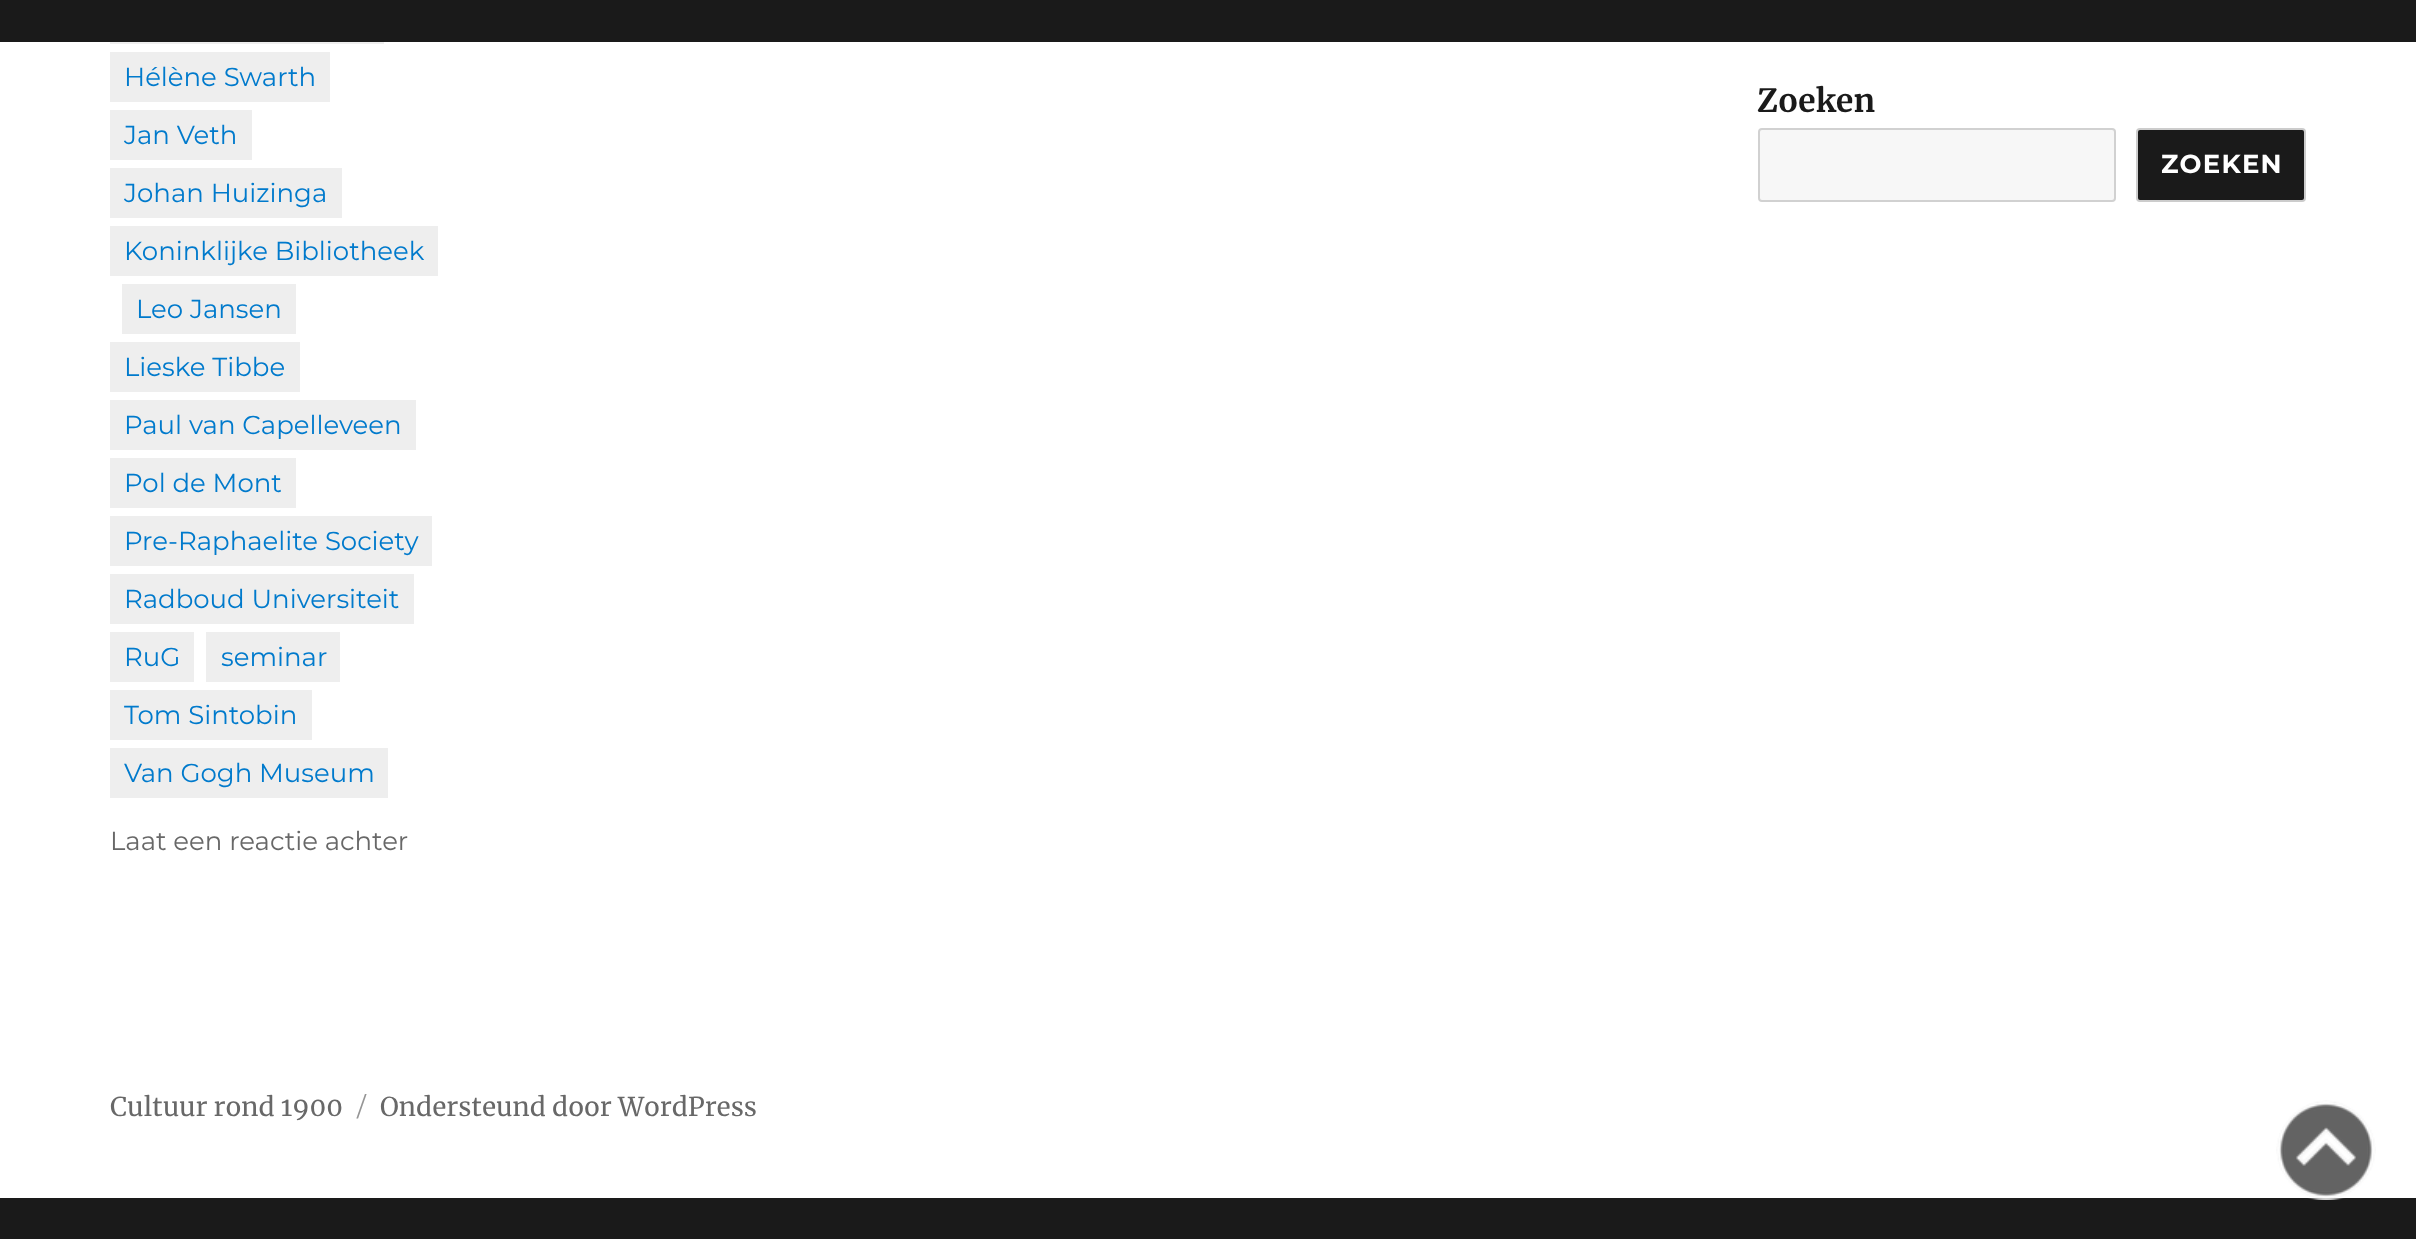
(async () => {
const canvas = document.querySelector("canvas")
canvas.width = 2416
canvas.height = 1239
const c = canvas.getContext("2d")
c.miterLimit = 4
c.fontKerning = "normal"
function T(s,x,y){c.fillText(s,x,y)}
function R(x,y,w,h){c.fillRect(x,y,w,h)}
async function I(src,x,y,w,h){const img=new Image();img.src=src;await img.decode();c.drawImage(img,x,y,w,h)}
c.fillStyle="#fff"
R(0,0,2416,1239)
c.fillStyle="#1a1a1a"
R(0,0,2416,42)
c.fillStyle="#eee"
R(110,42,274,2)
R(110,52,220,50)
c.font="100 26px 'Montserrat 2'"
c.fillStyle="#007acc"
T("Hélène Swarth",124,86)
c.fillStyle="#eee"
R(110,110,142,50)
c.fillStyle="#007acc"
T("Jan Veth",124,144)
c.fillStyle="#eee"
R(110,168,232,50)
c.fillStyle="#007acc"
T("Johan Huizinga",124,202)
c.fillStyle="#eee"
R(110,226,328,50)
c.fillStyle="#007acc"
T("Koninklijke Bibliotheek",124,260)
c.fillStyle="#eee"
R(122,284,174,50)
c.fillStyle="#007acc"
T("Leo Jansen",136,318)
c.fillStyle="#eee"
R(110,342,190,50)
c.fillStyle="#007acc"
T("Lieske Tibbe",124,376)
c.fillStyle="#eee"
R(110,400,306,50)
c.fillStyle="#007acc"
T("Paul van Capelleveen",124,434)
c.fillStyle="#eee"
R(110,458,186,50)
c.fillStyle="#007acc"
T("Pol de Mont",124,492)
c.fillStyle="#eee"
R(110,516,322,50)
c.fillStyle="#007acc"
T("Pre-Raphaelite Society",124,550)
c.fillStyle="#eee"
R(110,574,304,50)
c.fillStyle="#007acc"
T("Radboud Universiteit",124,608)
c.fillStyle="#eee"
R(110,632,84,50)
c.fillStyle="#007acc"
T("RuG",124,666)
c.fillStyle="#eee"
R(206,632,134,50)
c.fillStyle="#007acc"
T("seminar",221,666)
c.fillStyle="#eee"
R(110,690,202,50)
c.fillStyle="#007acc"
T("Tom Sintobin",124,724)
c.fillStyle="#eee"
R(110,748,278,50)
c.fillStyle="#007acc"
T("Van Gogh Museum",124,782)
c.fillStyle="#686868"
T("Laat een reactie achter",110,850)
c.font="bold 32px Merriweather"
c.fillStyle="#1a1a1a"
T("Zoeken",1757,112)
c.fillStyle="#f7f7f7"
c.beginPath()
c.roundRect(1759,129,356,72,3)
c.fill()
c.strokeStyle="#d1d1d1"
c.lineWidth=2
c.stroke()
c.fillStyle="#1a1a1a"
c.beginPath()
c.roundRect(2137,129,168,72,3)
c.fill()
c.strokeStyle="#ccc"
c.stroke()
c.letterSpacing="1.25px"
c.font="100 26px Montserrat"
c.fillStyle="#fff"
T("ZOEKEN",2161,173)
c.letterSpacing="0px"
c.font="26px Merriweather"
c.fillStyle="#686868"
T("Cultuur rond 1900",110,1116)
c.font="100 26px 'Montserrat 2'"
c.fillStyle="#959595"
T("/",357,1116)
c.font="26px Merriweather"
c.fillStyle="#686868"
T("Ondersteund door WordPress",380,1116)
c.fillStyle="#1a1a1a"
R(0,1198,2416,41)
await I("1.png",2276,1100,100,100)
})()
